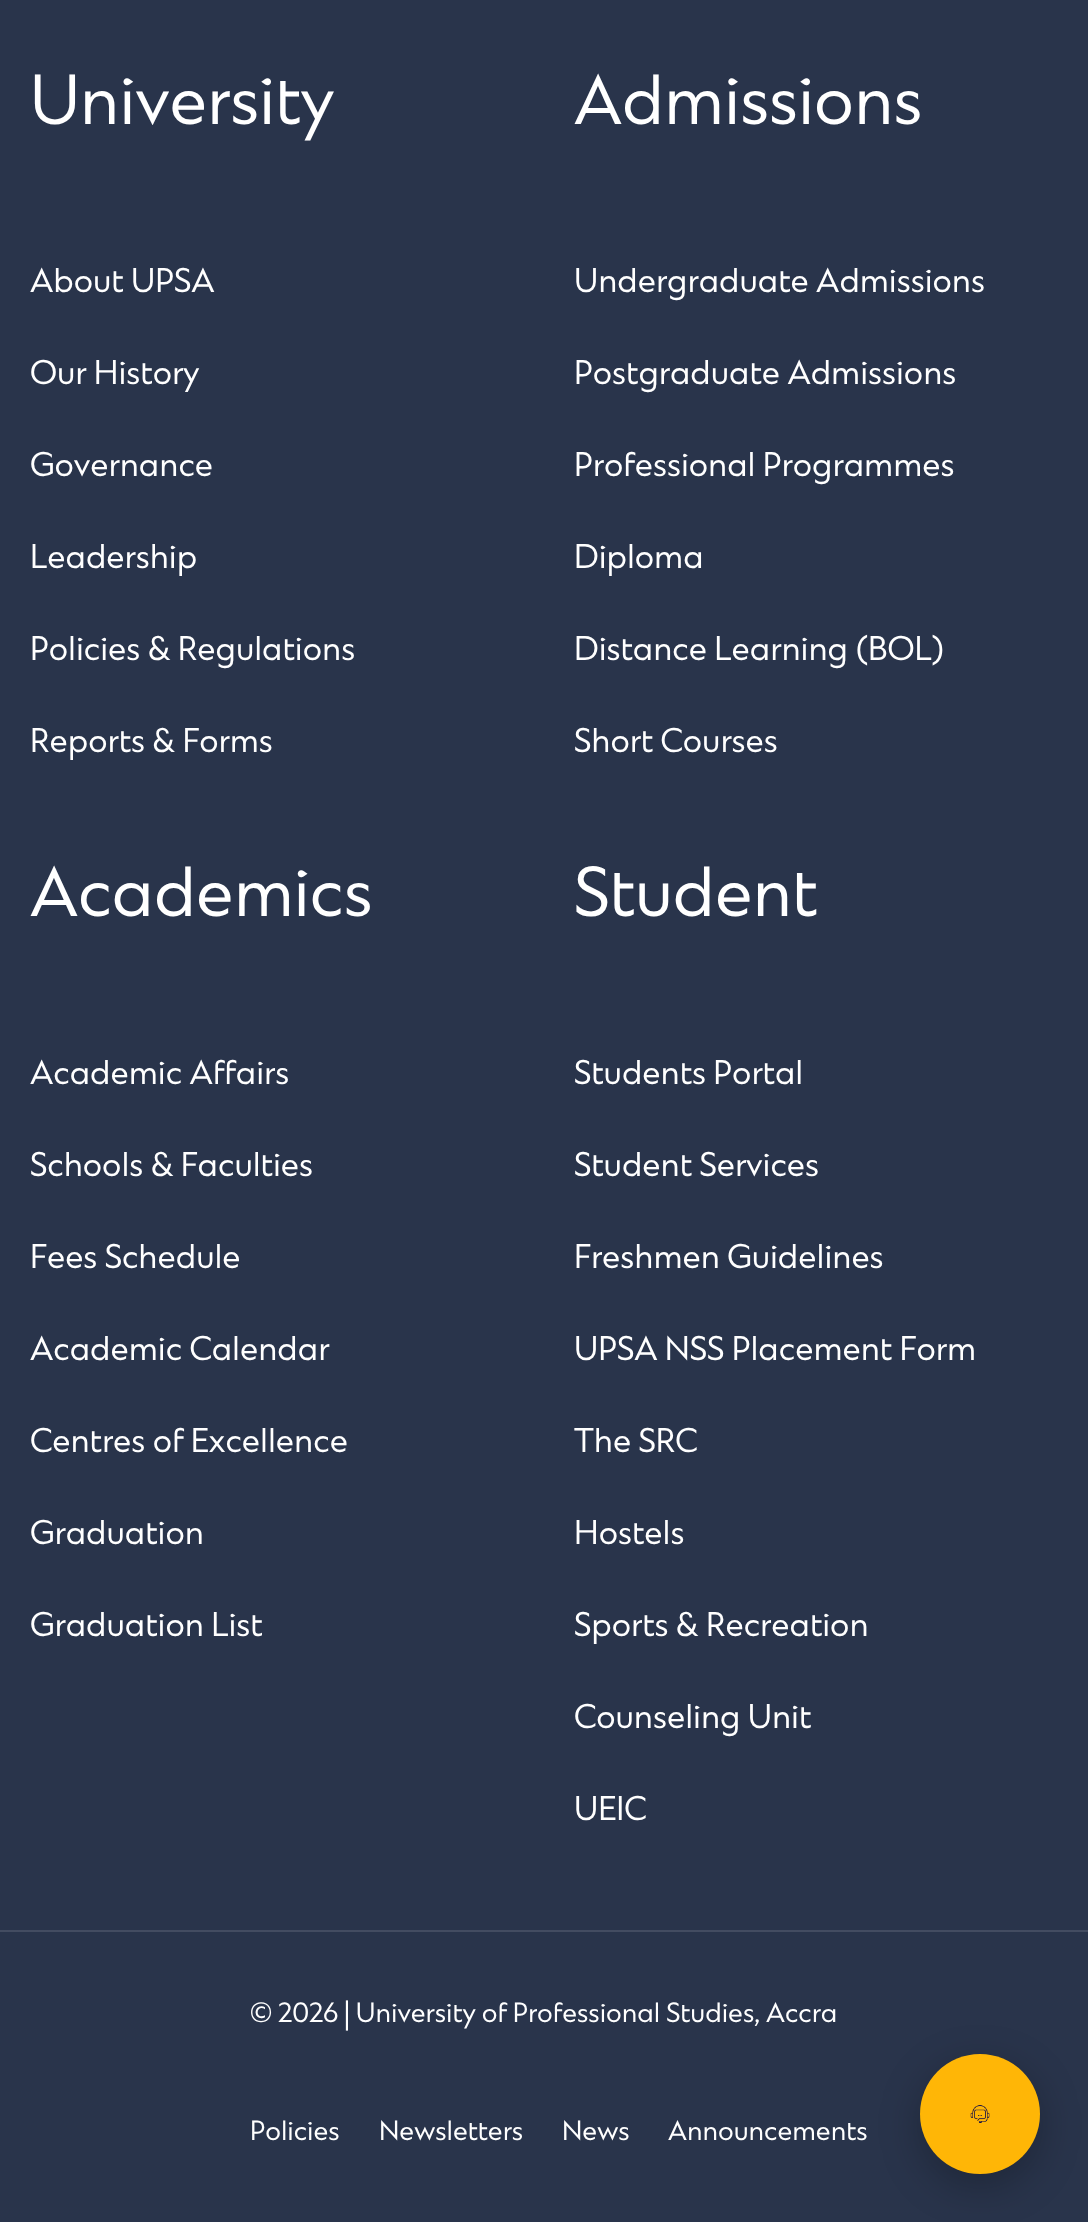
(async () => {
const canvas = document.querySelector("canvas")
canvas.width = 1088
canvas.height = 2222
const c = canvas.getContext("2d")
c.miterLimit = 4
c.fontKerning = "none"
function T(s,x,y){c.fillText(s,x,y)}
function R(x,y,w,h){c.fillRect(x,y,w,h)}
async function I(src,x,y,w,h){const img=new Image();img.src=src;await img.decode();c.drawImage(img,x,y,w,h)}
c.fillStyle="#29344b"
R(0,0,1088,2222)
c.fillStyle="#434c61"
R(0,1930,1088,2)
c.font="66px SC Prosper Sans"
c.fillStyle="#fff"
T("University",30,124)
c.font="32px SC Prosper Sans"
T("About UPSA",30,292)
T("Our History",30,384)
T("Governance",30,476)
T("Leadership",30,568)
T("Policies & Regulations",30,660)
T("Reports & Forms",30,752)
c.font="66px SC Prosper Sans"
T("Admissions",574,124)
c.font="32px SC Prosper Sans"
T("Undergraduate Admissions",574,292)
T("Postgraduate Admissions",574,384)
T("Professional Programmes",574,476)
T("Diploma",574,568)
T("Distance Learning (BOL)",574,660)
T("Short Courses",574,752)
c.font="66px SC Prosper Sans"
T("Academics",30,916)
c.font="32px SC Prosper Sans"
T("Academic Affairs",30,1084)
T("Schools & Faculties",30,1176)
T("Fees Schedule",30,1268)
T("Academic Calendar",30,1360)
T("Centres of Excellence",30,1452)
T("Graduation",30,1544)
T("Graduation List",30,1636)
c.font="66px SC Prosper Sans"
T("Student",574,916)
c.font="32px SC Prosper Sans"
T("Students Portal",574,1084)
T("Student Services",574,1176)
T("Freshmen Guidelines",574,1268)
T("UPSA NSS Placement Form",574,1360)
T("The SRC",574,1452)
T("Hostels",574,1544)
T("Sports & Recreation",574,1636)
T("Counseling Unit",574,1728)
T("UEIC",574,1820)
c.font="26px SC Prosper Sans"
T("© 2026 | University of Professional Studies, Accra",250,2022)
T("Policies",250,2140)
T("Newsletters",379,2140)
T("News",562,2140)
T("Announcements",668,2140)
c.fillStyle="#00000040"
c.filter="blur(20px)"
c.beginPath()
c.roundRect(920,2066,120,120,60)
c.fill()
c.filter="none"
c.fillStyle="#ffb606"
c.beginPath()
c.arc(980,2114,60,0,7)
c.fill()
await I("1.png",970,2105,20,18)
})()
